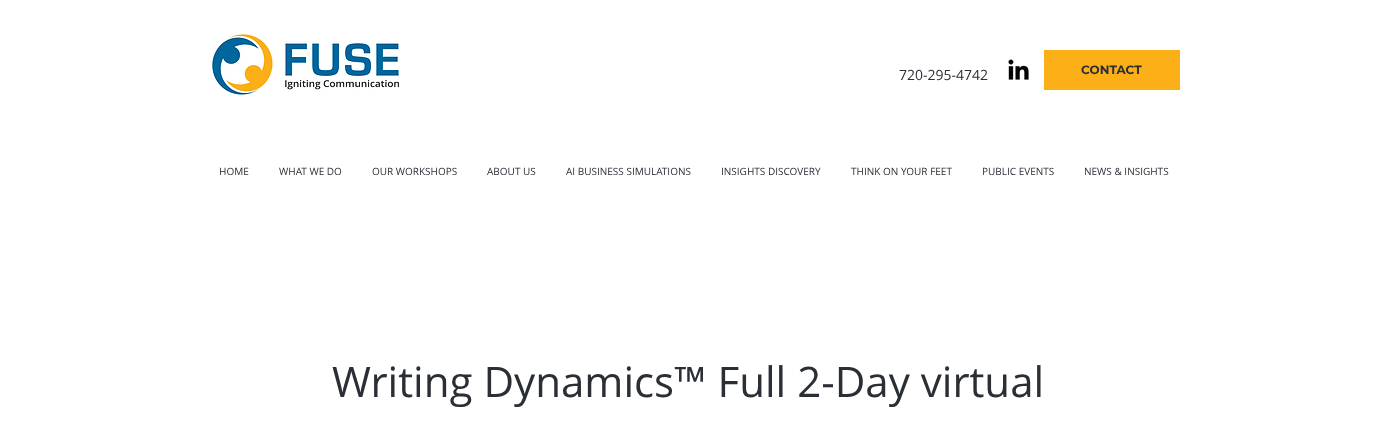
(async () => {
const canvas = document.querySelector("canvas")
canvas.width = 1387
canvas.height = 436
const c = canvas.getContext("2d")
c.miterLimit = 4
c.fontKerning = "normal"
function T(s,x,y){c.fillText(s,x,y)}
function R(x,y,w,h){c.fillRect(x,y,w,h)}
async function I(src,x,y,w,h){const img=new Image();img.src=src;await img.decode();c.drawImage(img,x,y,w,h)}
c.fillStyle="#fff"
R(0,0,1387,436)
await I("1.png",212,34,187,62)
c.font="14px Open Sans"
c.fillStyle="#2a2f36"
T("720-295-4742",899,80)
await I("2.png",1008,59,21,21)
c.fillStyle="#fcaf17"
R(1044,50,136,40)
c.font="bold 12px Montserrat"
c.fillStyle="#2a2f36"
T("CONTACT",1081,74)
c.font="10px Open Sans"
T("HOME",219,175)
T("WHAT WE DO",279,175)
T("OUR WORKSHOPS",372,175)
T("ABOUT US",487,175)
T("AI BUSINESS SIMULATIONS",566,175)
T("INSIGHTS DISCOVERY",721,175)
T("THINK ON YOUR FEET",851,175)
T("PUBLIC EVENTS",982,175)
T("NEWS & INSIGHTS",1084,175)
c.font="42px Open Sans"
T("Writing Dynamics™ Full 2-Day virtual",332,397)
})()
